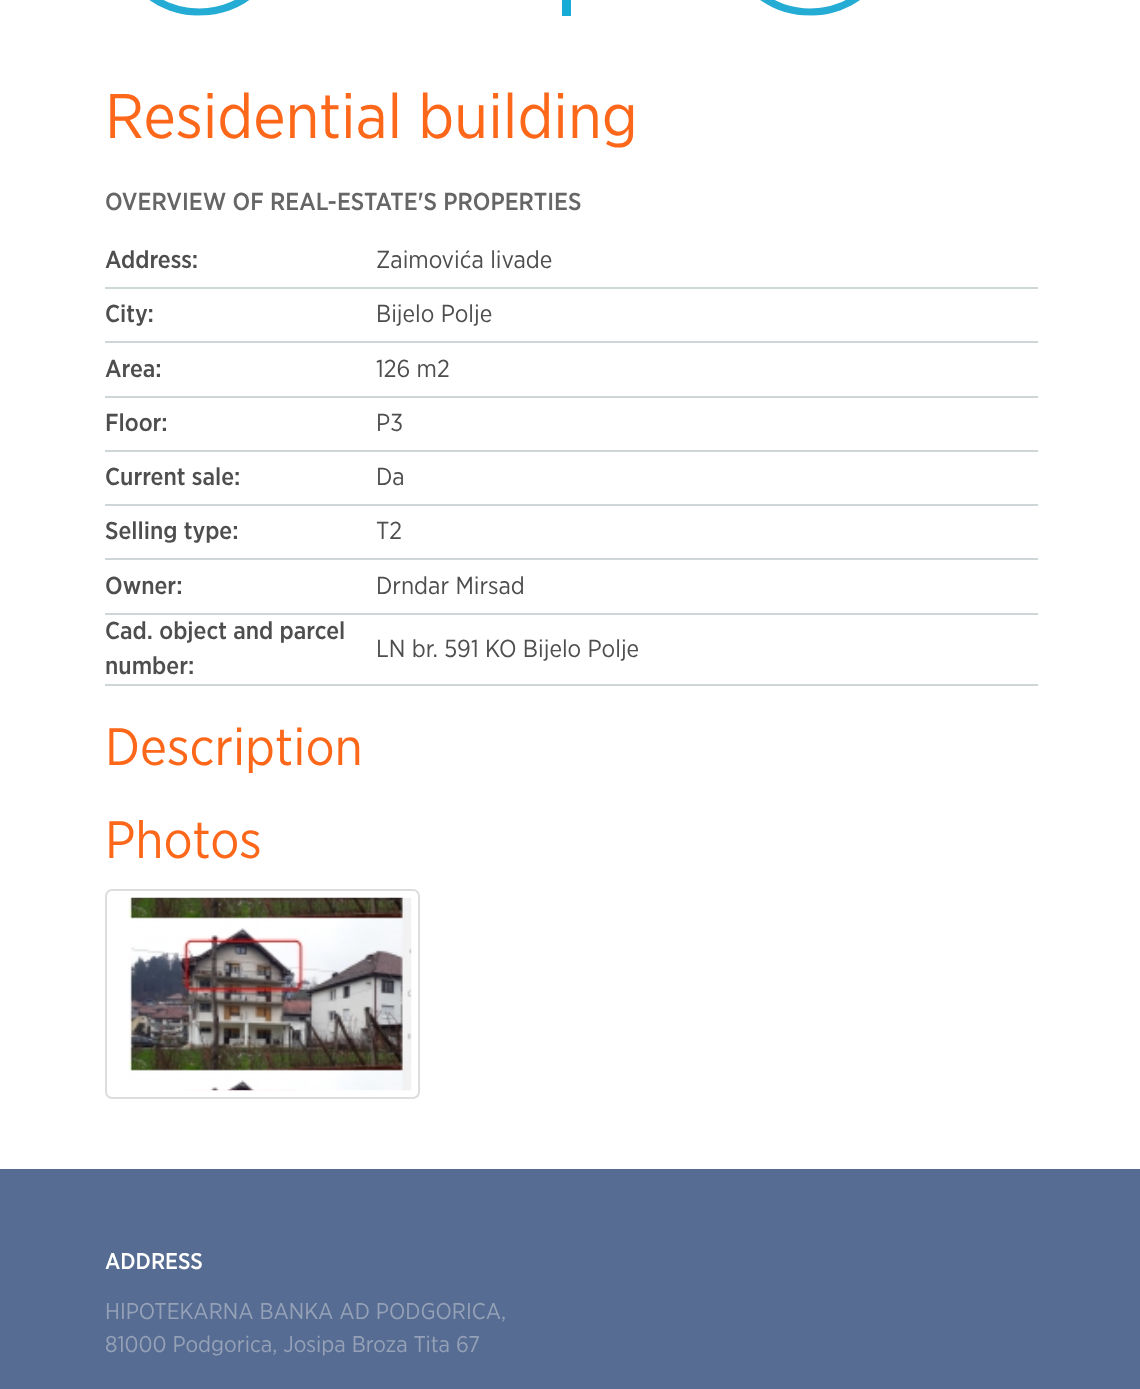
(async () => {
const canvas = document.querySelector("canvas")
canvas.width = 1140
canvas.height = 1389
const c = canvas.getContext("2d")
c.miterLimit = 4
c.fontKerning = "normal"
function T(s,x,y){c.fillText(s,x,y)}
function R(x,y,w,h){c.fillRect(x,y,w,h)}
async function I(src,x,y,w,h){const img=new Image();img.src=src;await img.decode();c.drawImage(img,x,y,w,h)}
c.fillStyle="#fff"
R(0,0,1140,1389)
await I("1.png",149,0,101,16)
c.fillStyle="#16acd5"
R(562,0,9,16)
await I("2.png",760,0,100,16)
c.font="63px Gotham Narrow"
c.fillStyle="#fd671a"
T("Residential building",105,138)
c.font="500 24.5px Gotham Narrow"
c.fillStyle="#666"
T("OVERVIEW OF REAL-ESTATE'S PROPERTIES",105,210)
c.fillStyle="#4e4e4e"
T("Address:",105,268)
c.fillStyle="#cfd6d7"
R(105,287,933,2)
c.font="24.5px Gotham Narrow"
c.fillStyle="#4e4e4e"
T("Zaimovića livade",376,268)
c.font="500 24.5px Gotham Narrow"
T("City:",105,322)
c.fillStyle="#cfd6d7"
R(105,341,933,2)
c.font="24.5px Gotham Narrow"
c.fillStyle="#4e4e4e"
T("Bijelo Polje",376,322)
c.font="500 24.5px Gotham Narrow"
T("Area:",105,377)
c.fillStyle="#cfd6d7"
R(105,396,933,2)
c.font="24.5px Gotham Narrow"
c.fillStyle="#4e4e4e"
T("126 m2",376,377)
c.font="500 24.5px Gotham Narrow"
T("Floor:",105,431)
c.fillStyle="#cfd6d7"
R(105,450,933,2)
c.font="24.5px Gotham Narrow"
c.fillStyle="#4e4e4e"
T("P3",376,431)
c.font="500 24.5px Gotham Narrow"
T("Current sale:",105,485)
c.fillStyle="#cfd6d7"
R(105,504,933,2)
c.font="24.5px Gotham Narrow"
c.fillStyle="#4e4e4e"
T("Da",376,485)
c.font="500 24.5px Gotham Narrow"
T("Selling type:",105,539)
c.fillStyle="#cfd6d7"
R(105,558,933,2)
c.font="24.5px Gotham Narrow"
c.fillStyle="#4e4e4e"
T("T2",376,539)
c.font="500 24.5px Gotham Narrow"
T("Owner:",105,594)
c.fillStyle="#cfd6d7"
R(105,613,933,2)
c.font="24.5px Gotham Narrow"
c.fillStyle="#4e4e4e"
T("Drndar Mirsad",376,594)
c.font="500 24.5px Gotham Narrow"
T("Cad. object and parcel",105,639)
T("number:",105,674)
c.fillStyle="#cfd6d7"
R(105,684,933,2)
c.font="24.5px Gotham Narrow"
c.fillStyle="#4e4e4e"
T("LN br. 591 KO Bijelo Polje",376,657)
c.font="52.5px Gotham Narrow"
c.fillStyle="#fd671a"
T("Description",105,765)
T("Photos",105,858)
c.beginPath()
c.roundRect(106,890,313,208,6)
c.strokeStyle="#ddd"
c.lineWidth=2
c.stroke()
await I("3.png",128,897,284,194)
c.fillStyle="#566c92"
R(0,1169,1140,220)
c.font="500 22.75px Gotham Narrow"
c.fillStyle="#fff"
T("ADDRESS",105,1269)
c.font="22.75px Gotham Narrow"
c.fillStyle="#95a1b7"
T("HIPOTEKARNA BANKA AD PODGORICA,",105,1319)
T("81000 Podgorica, Josipa Broza Tita 67",105,1352)
})()
